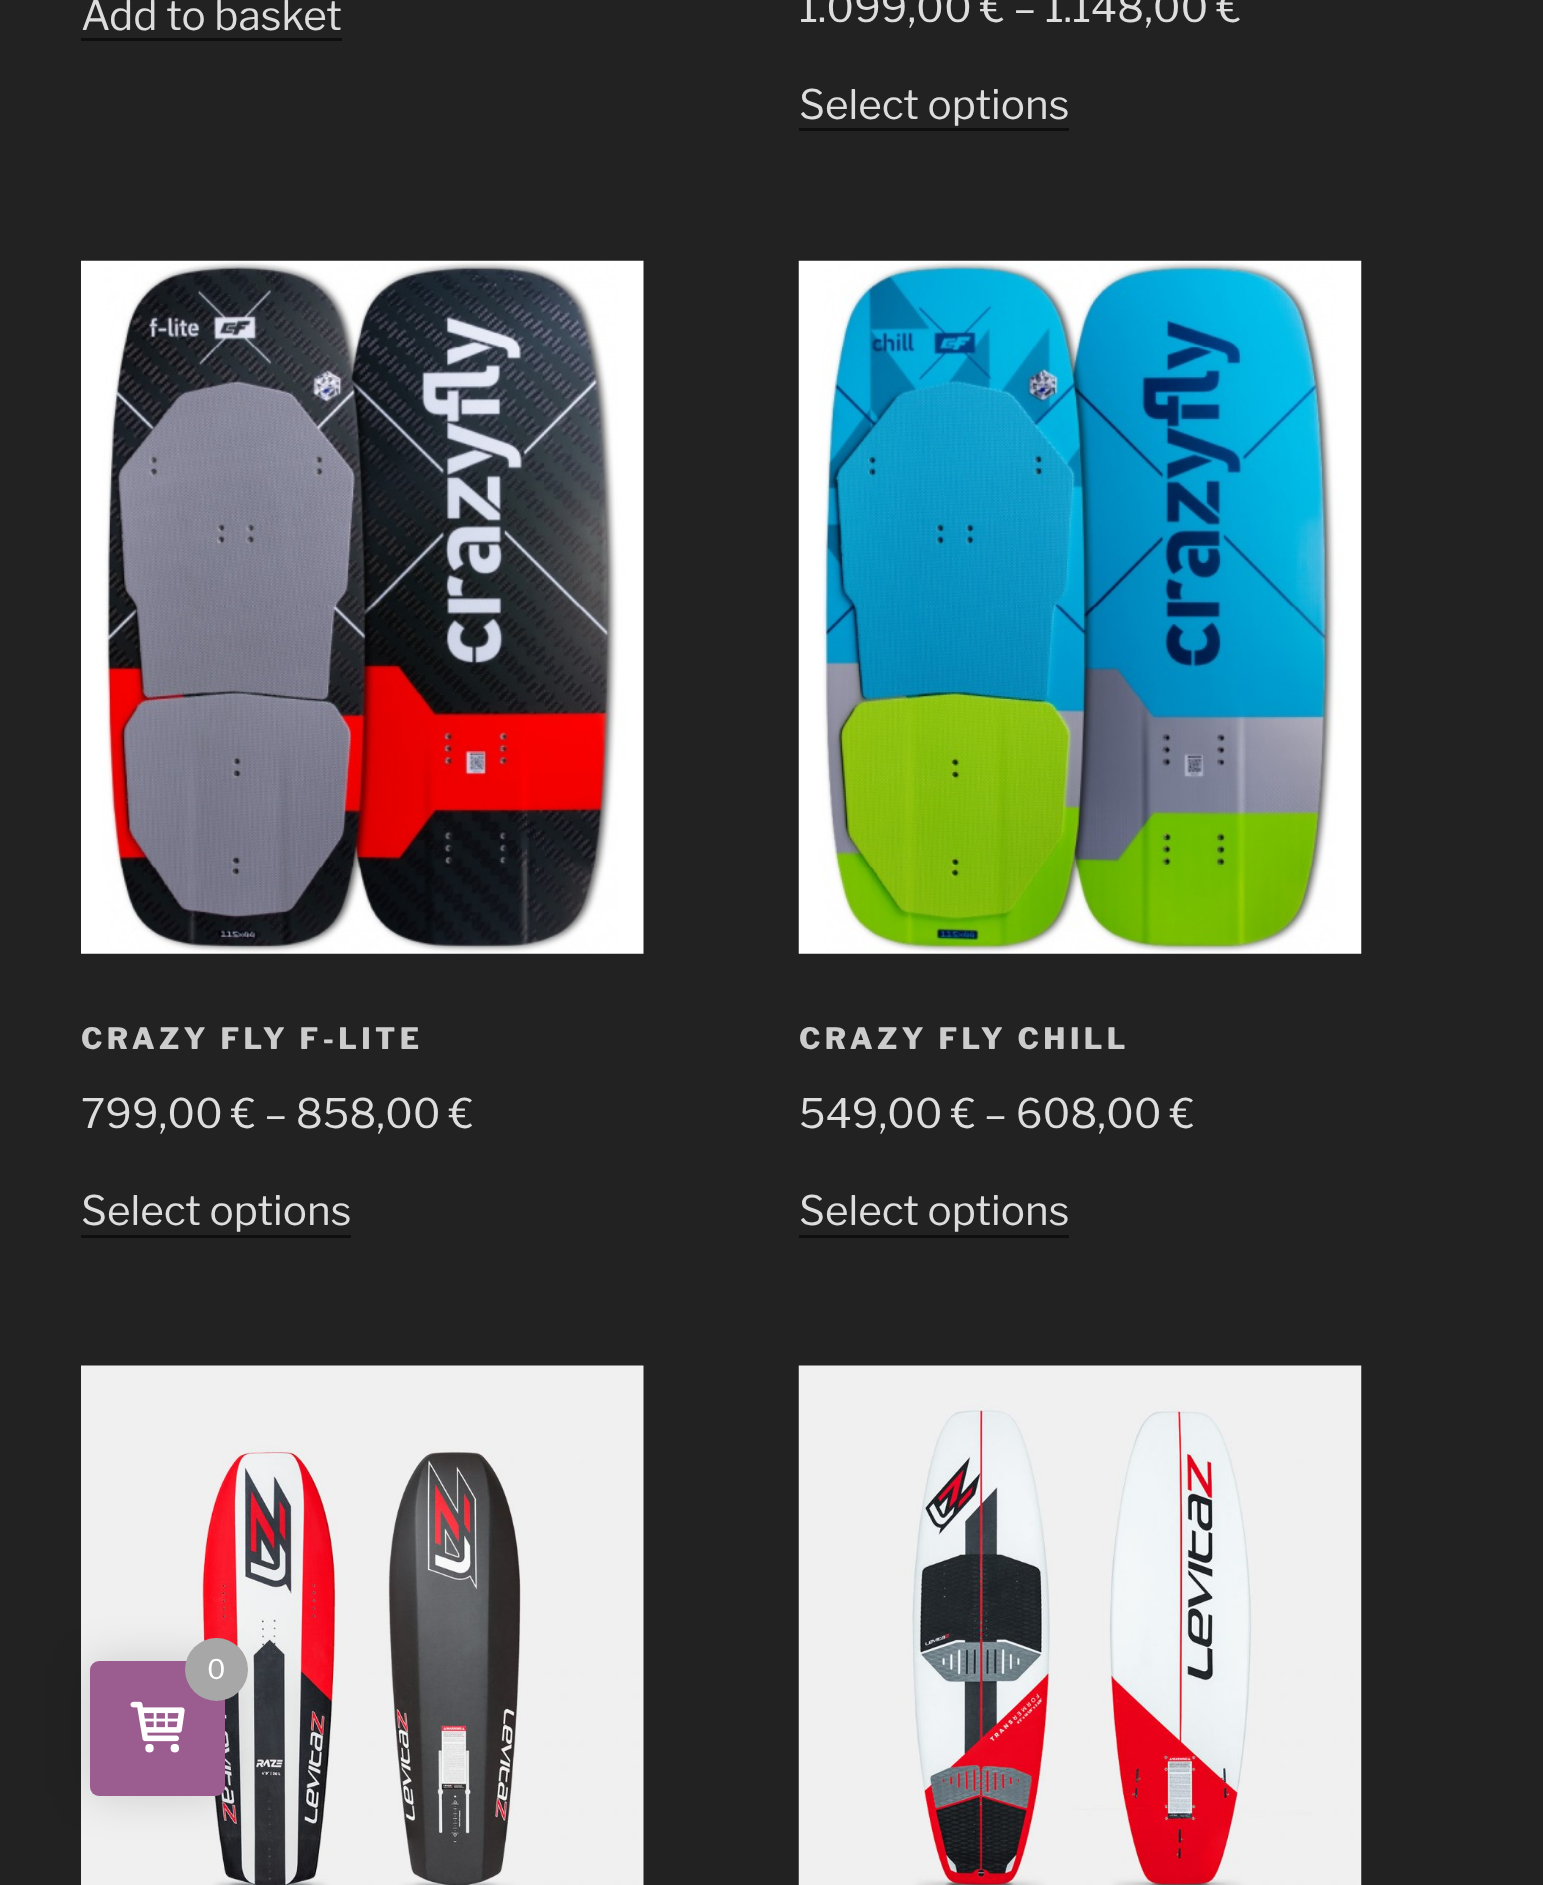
(async () => {
const canvas = document.querySelector("canvas")
canvas.width = 1543
canvas.height = 1885
const c = canvas.getContext("2d")
c.miterLimit = 4
c.fontKerning = "normal"
function T(s,x,y){c.fillText(s,x,y)}
function R(x,y,w,h){c.fillRect(x,y,w,h)}
function Q(x,y,w,h,r){c.beginPath();c.roundRect(x,y,w,h,r);c.fill()}
async function I(src,x,y,w,h){const img=new Image();img.src=src;await img.decode();c.drawImage(img,x,y,w,h)}
let path
c.fillStyle="#222"
R(0,0,1543,1885)
c.font="100 40.5px Libre Franklin"
c.fillStyle="#ddd"
T("Add to basket",81,30)
c.fillStyle="#0f0f0f"
R(81,38,261,3)
c.fillStyle="#ddd"
T("1.099,00 € – 1.148,00 €",799,22)
T("Select options",799,119)
c.fillStyle="#0f0f0f"
path = new Path2D("M799 128v3h270v-48v45z")
c.fill(path)
await I("1.png",81,260,563,694)
c.letterSpacing="4.4px"
c.font="100 29.25px 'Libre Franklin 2'"
c.fillStyle="#ccc"
T("CRAZY FLY F-LITE",81,1049)
c.letterSpacing="0px"
c.font="100 40.5px Libre Franklin"
c.fillStyle="#ddd"
T("799,00 € – 858,00 €",81,1128)
T("Select options",81,1225)
c.fillStyle="#0f0f0f"
R(81,1235,270,3)
await I("2.png",798,260,564,694)
c.letterSpacing="4.4px"
c.font="100 29.25px 'Libre Franklin 2'"
c.fillStyle="#ccc"
T("CRAZY FLY CHILL",799,1049)
c.letterSpacing="0px"
c.font="100 40.5px Libre Franklin"
c.fillStyle="#ddd"
T("549,00 € – 608,00 €",799,1128)
T("Select options",799,1225)
c.fillStyle="#0f0f0f"
path = new Path2D("M799 1235v3h270v-48v45z")
c.fill(path)
await I("3.png",81,1365,563,520)
await I("4.png",798,1365,564,520)
c.fillStyle="#00000026"
c.filter="blur(22.5px)"
c.beginPath()
c.roundRect(90,1661,135,135,9)
c.fill()
c.filter="none"
c.fillStyle="#9b5c8f"
Q(90,1661,135,135,9)
c.fillStyle="#a7a7a7"
c.beginPath()
c.arc(216.5,1669.5,31.5,0,7)
c.fill()
c.font="100 27px Libre Franklin"
c.fillStyle="#fff"
T("0",207,1679)
await I("5.png",130,1701,55,52)
})()
